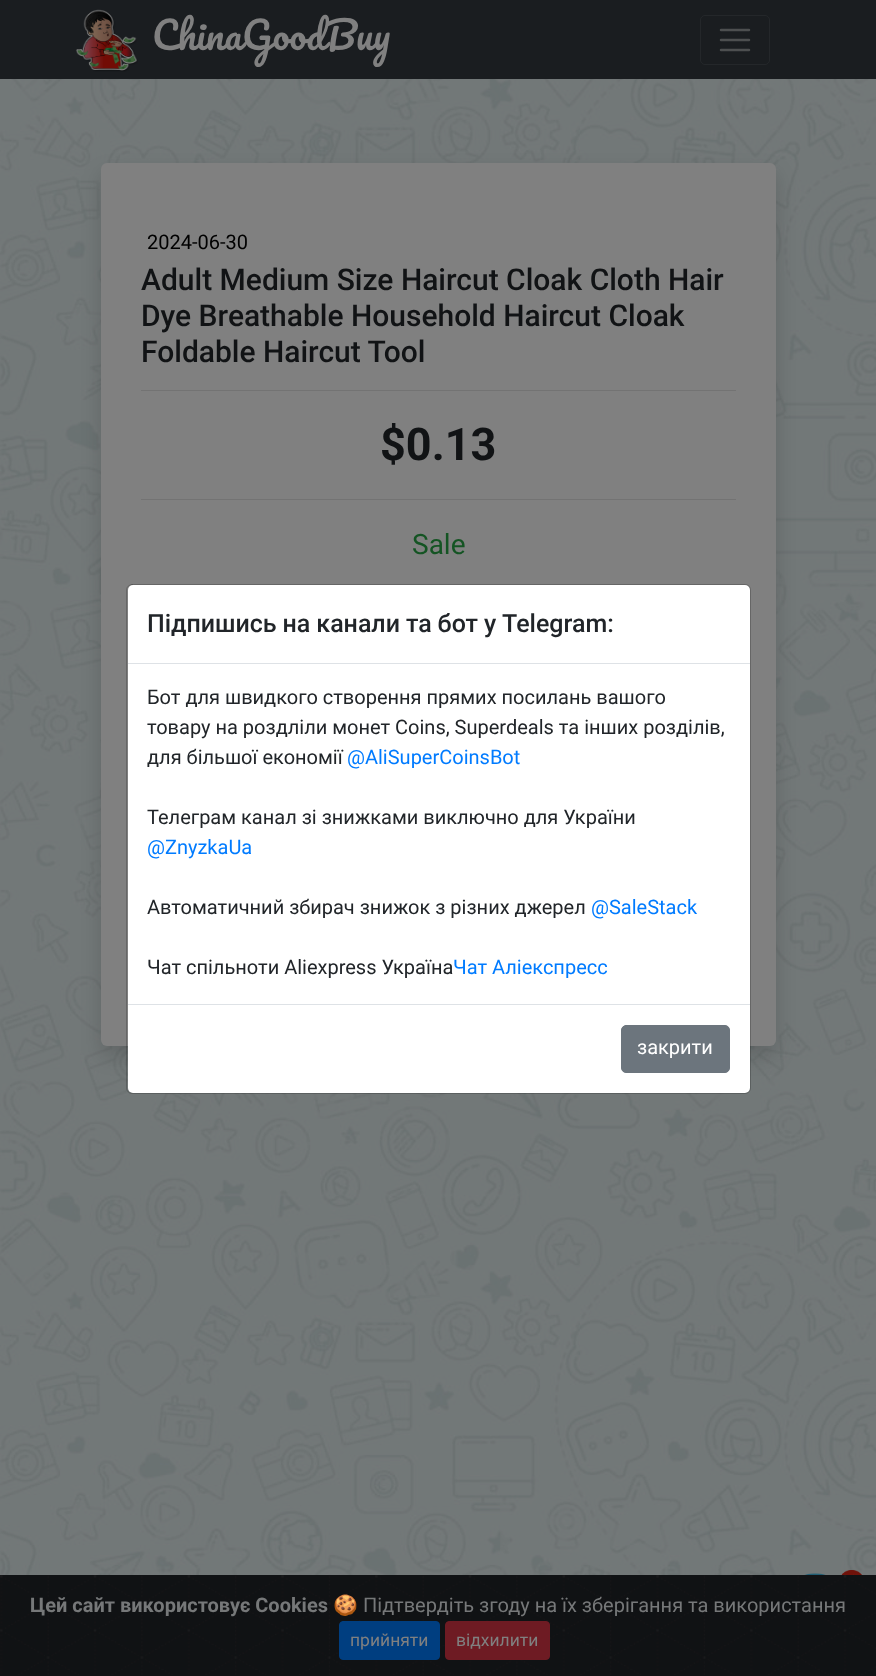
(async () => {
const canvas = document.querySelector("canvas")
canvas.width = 876
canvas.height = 1676
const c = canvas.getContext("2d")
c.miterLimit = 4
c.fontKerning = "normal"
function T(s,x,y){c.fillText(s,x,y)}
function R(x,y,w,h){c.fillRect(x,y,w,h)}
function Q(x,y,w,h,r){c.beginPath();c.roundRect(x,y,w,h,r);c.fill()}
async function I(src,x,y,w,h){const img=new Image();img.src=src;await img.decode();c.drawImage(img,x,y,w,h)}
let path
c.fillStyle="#fff"
R(0,0,876,1676)
await I("1.png",0,79,876,1496)
c.fillStyle="#1a1d20"
R(0,0,876,79)
await I("2.png",75,9,63,63)
c.font="37.5px Pacifico"
c.fillStyle="#808080"
T("ChinaGoodBuy",152,50)
c.beginPath()
c.roundRect(700.5,15.5,69,49,4.5)
c.strokeStyle="#24272a"
c.stroke()
path = new Path2D("M721 30h28m-28 10h28m-28 10h28")
c.strokeStyle="#4d4f50"
c.lineWidth=2.5
c.lineCap="round"
c.stroke(path)
c.fillStyle="#00000026"
c.filter="blur(10px)"
c.beginPath()
c.roundRect(101,173,675,883,6)
c.fill()
c.filter="none"
c.fillStyle="#808080"
Q(101,163,675,883,6)
c.font="20px Roboto"
c.fillStyle="#000"
T("2024-06-30",147,249)
c.font="500 30px Roboto"
c.fillStyle="#111315"
T("Adult Medium Size Haircut Cloak Cloth Hair",141,290)
T("Dye Breathable Household Haircut Cloak",141,326)
T("Foldable Haircut Tool",141,362)
c.fillStyle="#737373"
R(141,390,595,1)
c.font="bold 45px Roboto"
c.fillStyle="#111315"
T("$0.13",380,460)
c.fillStyle="#737373"
R(141,499,595,1)
c.font="28px Roboto"
c.fillStyle="#145423"
T("Sale",412,554)
c.fillStyle="#fff"
Q(128,585,622,508,5)
c.beginPath()
c.roundRect(126.5,584.5,624,509,5.5)
c.strokeStyle="#00000033"
c.lineWidth=1
c.stroke()
c.fillStyle="#dee2e6"
R(128,663,622,1)
c.wordSpacing="-0.25px"
c.font="500 25px Roboto"
c.fillStyle="#212529"
T("Підпишись на канали та бот у Telegram:",147,632)
c.wordSpacing="0px"
c.font="20px Roboto"
T("Бот для швидкого створення прямих посилань вашого",147,704)
T("товару на роздліли монет Coins, Superdeals та інших розділів,",147,734)
T("для більшої економії",147,764)
c.fillStyle="#007bff"
T("@AliSuperCoinsBot",347,764)
c.fillStyle="#212529"
T("Телеграм канал зі знижками виключно для України",147,824)
c.fillStyle="#007bff"
T("@ZnyzkaUa",147,854)
c.fillStyle="#212529"
T("Автоматичний збирач знижок з різних джерел",147,914)
c.fillStyle="#007bff"
T("@SaleStack",591,914)
c.fillStyle="#212529"
T("Чат спільноти Aliexpress Україна",147,974)
c.fillStyle="#007bff"
T("Чат Аліекспресс",453,974)
c.fillStyle="#dee2e6"
R(128,1004,622,1)
c.fillStyle="#6c757d"
c.beginPath()
c.roundRect(621.5,1025.5,108,47,4.5)
c.fill()
c.strokeStyle="#6c757d"
c.stroke()
c.fillStyle="#fff"
T("закрити",637,1054)
await I("3.png",804,1570,58,5)
c.fillStyle="#111214"
R(0,1675,876,1)
await I("4.png",0,1575,876,100)
c.font="bold 20px Roboto"
c.fillStyle="#767879"
T("Цей сайт використовує Cookies",30,1612)
c.font="20px Noto Color Emoji"
T("🍪",333,1612)
c.font="20px Roboto"
T("Підтвердіть згоду на їх зберігання та використання",363,1612)
c.fillStyle="#003e80"
c.beginPath()
c.roundRect(339.5,1621.5,100,38,3.5)
c.fill()
c.strokeStyle="#003e80"
c.stroke()
c.font="17.5px Roboto"
c.fillStyle="#808080"
T("прийняти",350,1646)
c.fillStyle="#6e1b23"
c.beginPath()
c.roundRect(445.5,1621.5,104,38,3.5)
c.fill()
c.strokeStyle="#6e1b23"
c.stroke()
c.fillStyle="#808080"
T("відхилити",456,1646)
})()
